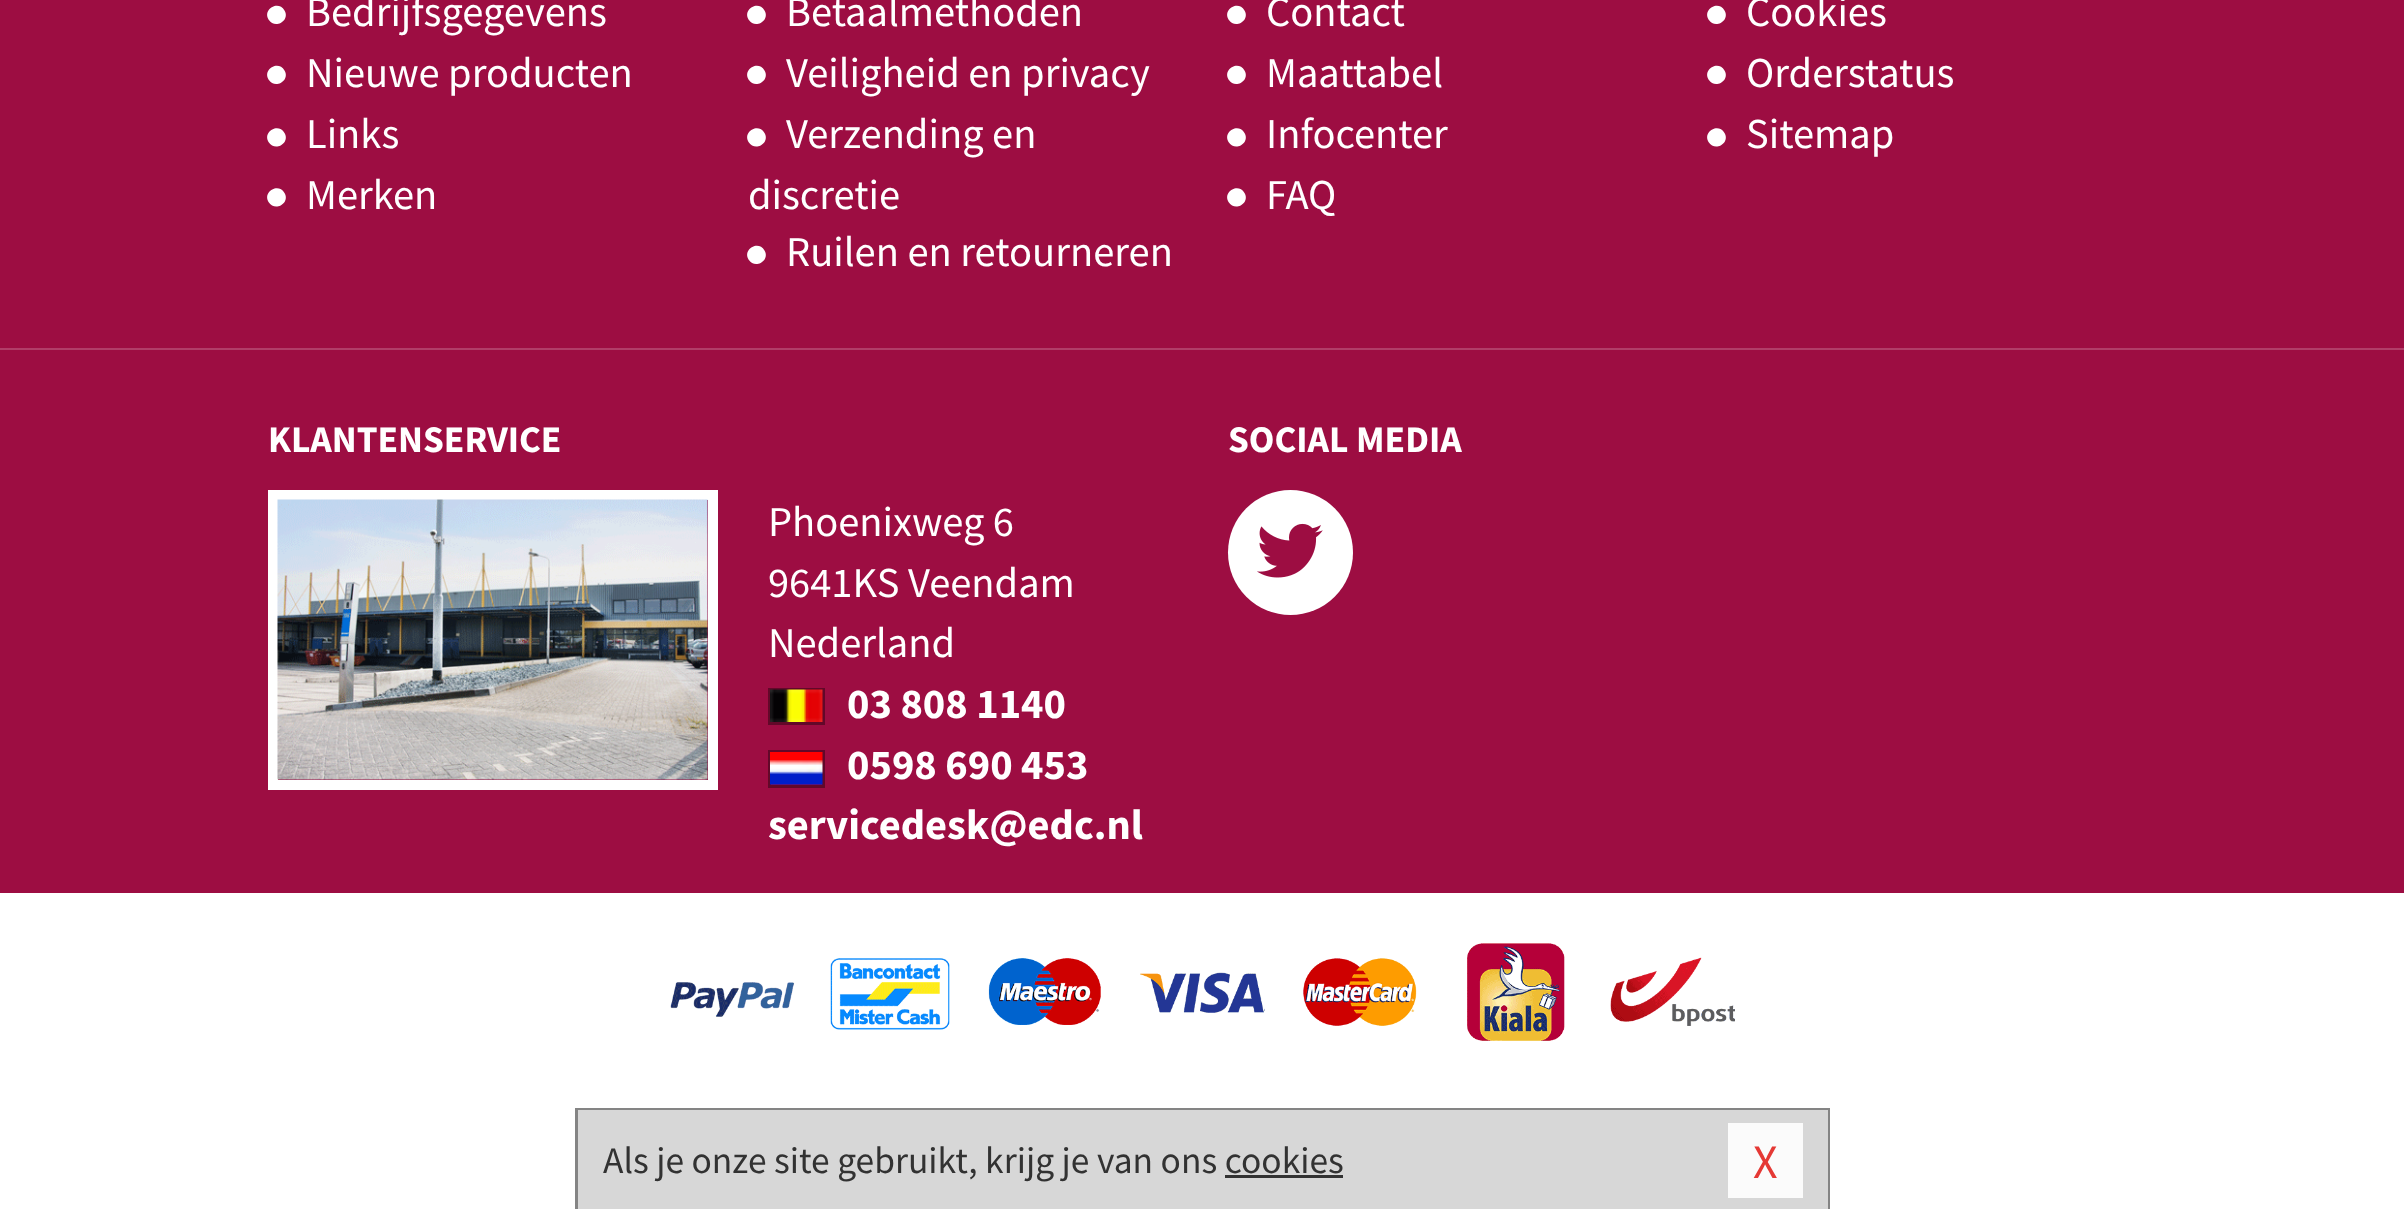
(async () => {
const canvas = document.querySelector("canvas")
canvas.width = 2404
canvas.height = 1209
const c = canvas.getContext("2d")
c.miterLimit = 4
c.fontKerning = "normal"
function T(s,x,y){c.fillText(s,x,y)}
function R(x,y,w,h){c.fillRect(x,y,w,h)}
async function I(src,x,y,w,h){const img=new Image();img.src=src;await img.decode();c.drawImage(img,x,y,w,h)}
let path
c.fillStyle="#fff"
R(0,0,2404,1209)
c.fillStyle="#9d0d42"
R(0,0,2404,348)
c.fillStyle="#b13d68"
R(0,348,2404,2)
c.fillStyle="#fff"
path = new Path2D("M284.5 10.5c6 10-9.5 19.5-16 9c-6-10.5 10-19.5 16-9z")
c.fill(path)
c.font="42.5px Source Sans Pro"
T("Bedrijfsgegevens",306,26)
path = new Path2D("M284.5 70.5c6 10-9.5 19.5-16 9c-6-10.5 10-19.5 16-9z")
c.fill(path)
T("Nieuwe producten",306,87)
path = new Path2D("M284.5 133c6 10-9.5 19.5-16 9c-6-10.5 10-19.5 16-9z")
c.fill(path)
T("Links",306,148)
path = new Path2D("M284.5 193c6 10-9.5 19.5-16 9c-6-10.5 10-19.5 16-9z")
c.fill(path)
T("Merken",306,209)
path = new Path2D("M764.5 10.5c6 10-9.5 19.5-16 9c-6-10.5 10-19.5 16-9z")
c.fill(path)
T("Betaalmethoden",786,26)
path = new Path2D("M764.5 70.5c6 10-9.5 19.5-16 9c-6-10.5 10-19.5 16-9z")
c.fill(path)
T("Veiligheid en privacy",786,87)
path = new Path2D("M764.5 133c6 10-9.5 19.5-16 9c-6-10.5 10-19.5 16-9z")
c.fill(path)
T("Verzending en",786,148)
T("discretie",748,209)
path = new Path2D("M764.5 250.5c6 10-9.5 19.5-16 9c-6-10.5 10-19.5 16-9z")
c.fill(path)
T("Ruilen en retourneren",786,266)
path = new Path2D("M1244.5 10.5c6 10-9.5 19.5-16 9c-6-10.5 10-19.5 16-9z")
c.fill(path)
T("Contact",1266,26)
path = new Path2D("M1244.5 70.5c6 10-9.5 19.5-16 9c-6-10.5 10-19.5 16-9z")
c.fill(path)
T("Maattabel",1266,87)
path = new Path2D("M1244.5 133c6 10-9.5 19.5-16 9c-6-10.5 10-19.5 16-9z")
c.fill(path)
T("Infocenter",1266,148)
path = new Path2D("M1244.5 193c6 10-9.5 19.5-16 9c-6-10.5 10-19.5 16-9z")
c.fill(path)
T("FAQ",1266,209)
path = new Path2D("M1724.5 10.5c6 10-9.5 19.5-16 9c-6-10.5 10-19.5 16-9z")
c.fill(path)
T("Cookies",1746,26)
path = new Path2D("M1724.5 70.5c6 10-9.5 19.5-16 9c-6-10.5 10-19.5 16-9z")
c.fill(path)
T("Orderstatus",1746,87)
path = new Path2D("M1724.5 133c6 10-9.5 19.5-16 9c-6-10.5 10-19.5 16-9z")
c.fill(path)
T("Sitemap",1746,148)
c.fillStyle="#9d0d42"
R(0,350,2404,543)
c.font="bold 37.5px Source Sans Pro"
c.fillStyle="#fff"
T("KLANTENSERVICE",268,452)
c.strokeStyle="#fff"
c.lineWidth=10
c.strokeRect(273,495,440,290)
await I("1.png",277,499,431,281)
c.font="42.5px Source Sans Pro"
T("Phoenixweg 6",768,536)
T("9641KS Veendam",768,597)
T("Nederland",768,657)
c.strokeStyle="#620829"
c.lineWidth=3
c.strokeRect(769.5,689.5,54,34)
await I("2.png",770,689,53,33)
c.font="bold 42.5px Source Sans Pro"
T("03 808 1140",847,718)
c.strokeRect(769.5,751.5,54,35)
await I("3.png",770,752,53,33)
T("0598 690 453",847,779)
T("servicedesk@edc.nl",768,839)
c.font="bold 37.5px Source Sans Pro"
T("SOCIAL MEDIA",1228,452)
c.beginPath()
c.arc(1290.5,552.5,62.5,0,7)
c.fill()
await I("4.png",1257,523,66,55)
await I("5.png",670,982,125,35)
await I("6.png",830,958,120,72)
await I("7.png",988,958,113,67)
await I("8.png",1140,972,125,41)
await I("9.png",1303,958,114,68)
await I("10.png",1467,943,98,98)
await I("11.png",1610,957,125,69)
c.strokeStyle="#848484"
c.strokeRect(576.5,1109.5,1252,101)
c.fillStyle="#d7d7d7"
R(578,1110,1250,99)
c.font="37.5px Source Sans Pro"
c.fillStyle="#323232"
T("Als je onze site gebruikt, krijg je van ons cookies",603,1173)
c.fillStyle="#fbfbfb"
R(1728,1123,75,75)
c.font="48px Source Sans Pro"
c.fillStyle="#e53935"
T("X",1753,1178)
c.fillStyle="#323232"
R(1225,1175,118,3)
})()
